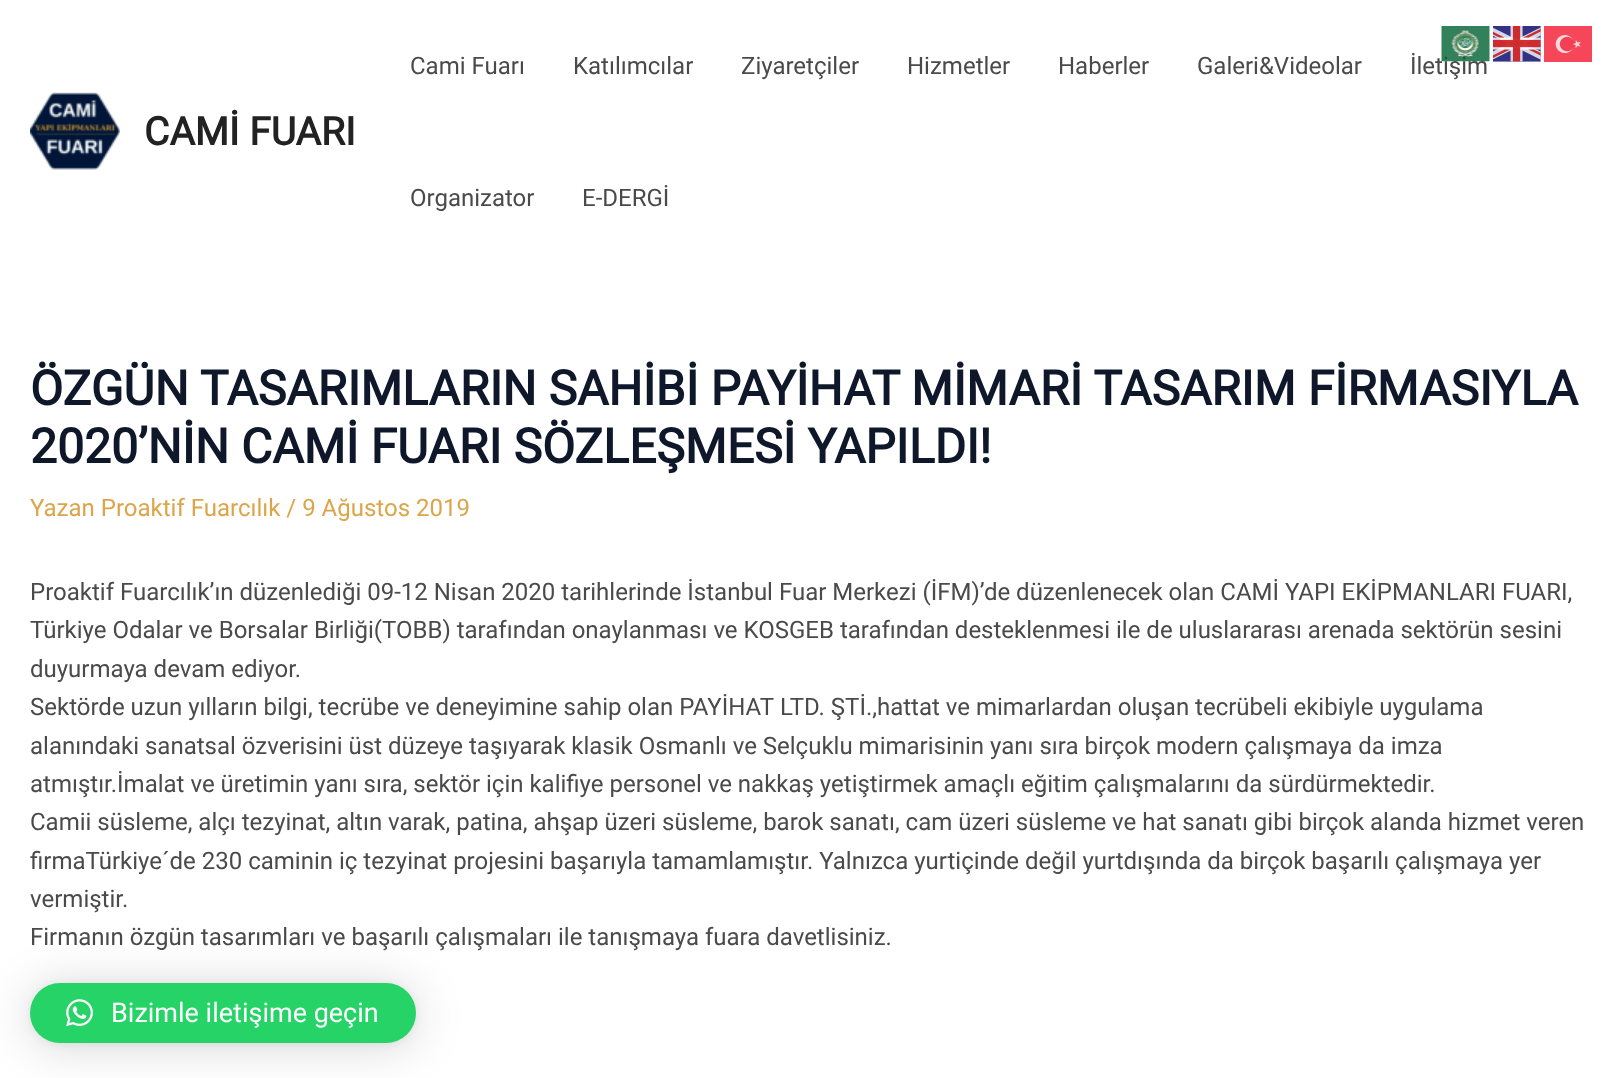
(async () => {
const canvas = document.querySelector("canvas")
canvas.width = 1617
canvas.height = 1078
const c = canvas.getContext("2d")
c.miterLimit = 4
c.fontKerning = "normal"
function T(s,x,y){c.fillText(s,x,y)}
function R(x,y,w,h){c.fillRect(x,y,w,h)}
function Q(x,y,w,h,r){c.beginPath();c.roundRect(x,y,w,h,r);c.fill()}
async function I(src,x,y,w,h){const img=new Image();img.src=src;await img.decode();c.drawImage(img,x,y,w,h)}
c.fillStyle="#fff"
R(0,0,1617,1078)
c.font="24px Roboto"
c.fillStyle="#4a4a4a"
T("İletişim",1410,74)
await I("1.png",1441,26,49,36)
await I("2.png",1493,26,48,36)
await I("3.png",1544,26,48,36)
await I("4.png",30,92,90,78)
c.font="bold 39px Roboto"
c.fillStyle="#222"
T("CAMİ FUARI",144,145)
c.font="24px Roboto"
c.fillStyle="#4a4a4a"
T("Cami Fuarı",410,74)
T("Katılımcılar",573,74)
T("Ziyaretçiler",741,74)
T("Hizmetler",907,74)
T("Haberler",1058,74)
T("Galeri&Videolar",1197,74)
T("Organizator",410,206)
T("E-DERGİ",582,206)
c.font="bold 48px Roboto"
c.fillStyle="#0f172a"
T("ÖZGÜN TASARIMLARIN SAHİBİ PAYİHAT MİMARİ TASARIM FİRMASIYLA",30,405)
T("2020’NİN CAMİ FUARI SÖZLEŞMESİ YAPILDI!",30,463)
c.font="24px Roboto"
c.fillStyle="#dca54a"
T("Yazan Proaktif Fuarcılık / 9 Ağustos 2019",30,516)
c.fillStyle="#4a4a4a"
T("Proaktif Fuarcılık’ın düzenlediği 09-12 Nisan 2020 tarihlerinde İstanbul Fuar Merkezi (İFM)’de düzenlenecek olan CAMİ YAPI EKİPMANLARI FUARI,",30,600)
T("Türkiye Odalar ve Borsalar Birliği(TOBB) tarafından onaylanması ve KOSGEB tarafından desteklenmesi ile de uluslararası arenada sektörün sesini",30,638)
T("duyurmaya devam ediyor.",30,677)
T("Sektörde uzun yılların bilgi, tecrübe ve deneyimine sahip olan PAYİHAT LTD. ŞTİ.,hattat ve mimarlardan oluşan tecrübeli ekibiyle uygulama",30,715)
T("alanındaki sanatsal özverisini üst düzeye taşıyarak klasik Osmanlı ve Selçuklu mimarisinin yanı sıra birçok modern çalışmaya da imza",30,754)
T("atmıştır.İmalat ve üretimin yanı sıra, sektör için kalifiye personel ve nakkaş yetiştirmek amaçlı eğitim çalışmalarını da sürdürmektedir.",30,792)
T("Camii süsleme, alçı tezyinat, altın varak, patina, ahşap üzeri süsleme, barok sanatı, cam üzeri süsleme ve hat sanatı gibi birçok alanda hizmet veren",30,830)
T("firmaTürkiye´de 230 caminin iç tezyinat projesini başarıyla tamamlamıştır. Yalnızca yurtiçinde değil yurtdışında da birçok başarılı çalışmaya yer",30,869)
T("vermiştir.",30,907)
T("Firmanın özgün tasarımları ve başarılı çalışmaları ile tanışmaya fuara davetlisiniz.",30,945)
c.fillStyle="#00000029"
c.filter="blur(24px)"
c.beginPath()
c.roundRect(30,986,386,60,30)
c.fill()
c.filter="none"
c.fillStyle="#0000000f"
c.filter="blur(4.5px)"
c.beginPath()
c.roundRect(30,984,386,60,30)
c.fill()
c.filter="none"
c.fillStyle="#25d366"
Q(30,983,386,60,30)
await I("5.png",66,999,27,28)
c.font="27px Roboto"
c.fillStyle="#fff"
T("Bizimle iletişime geçin",111,1022)
})()
